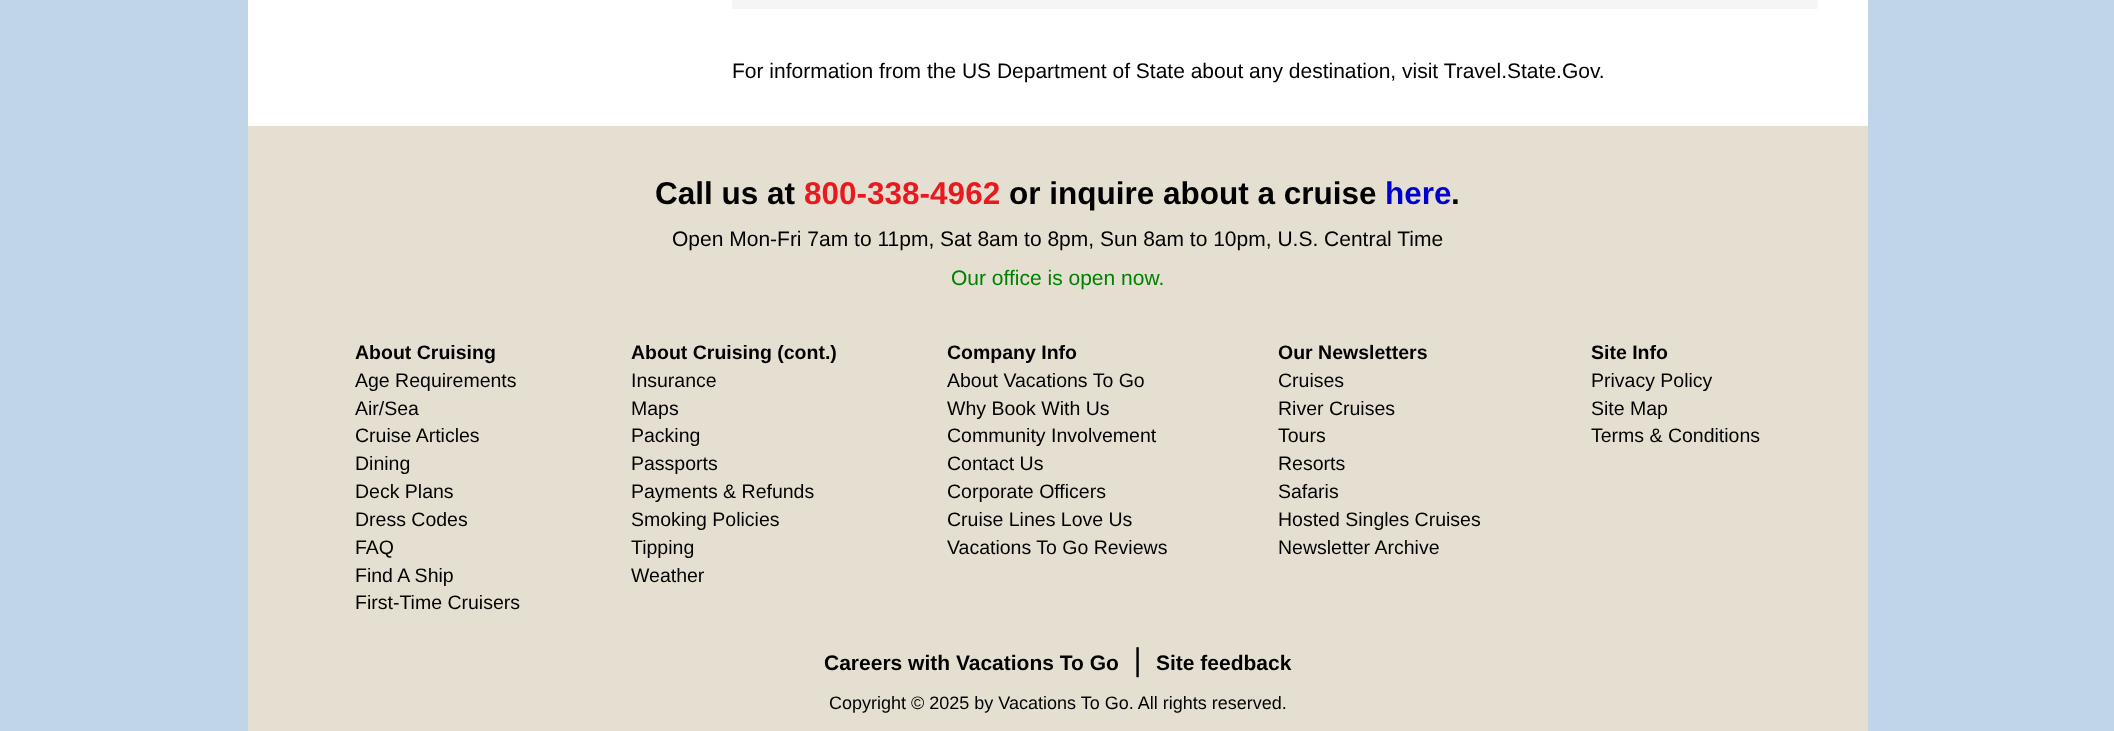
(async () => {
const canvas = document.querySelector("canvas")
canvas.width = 2114
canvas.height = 731
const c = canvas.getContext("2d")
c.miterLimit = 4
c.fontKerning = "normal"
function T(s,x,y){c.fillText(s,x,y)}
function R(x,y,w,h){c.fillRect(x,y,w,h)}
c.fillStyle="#c1d5e8"
R(0,0,2114,731)
c.fillStyle="#fff"
R(248,0,1620,126)
c.fillStyle="#f5f5f5"
R(732,0,1086,9)
c.font="21px Liberation Sans"
c.fillStyle="#000"
T("For information from the US Department of State about any destination, visit Travel.State.Gov.",732,78)
c.fillStyle="#e5dfd1"
R(248,126,1620,605)
c.font="bold 31.5px Liberation Sans"
c.fillStyle="#000"
T("Call us at",655,204)
c.fillStyle="#e8191f"
T("800-338-4962",804,204)
c.fillStyle="#000"
T("or inquire about a cruise",1009,204)
c.fillStyle="#0000cd"
T("here",1385,204)
c.fillStyle="#000"
T(".",1451,204)
c.font="21px Liberation Sans"
T("Open Mon-Fri 7am to 11pm, Sat 8am to 8pm, Sun 8am to 10pm, U.S. Central Time",672,246)
c.fillStyle="#008000"
T("Our office is open now.",951,285)
c.font="bold 19.5px Liberation Sans"
c.fillStyle="#000"
T("About Cruising",355,359)
c.font="19.5px Liberation Sans"
T("Age Requirements",355,387)
T("Air/Sea",355,415)
T("Cruise Articles",355,442)
T("Dining",355,470)
T("Deck Plans",355,498)
T("Dress Codes",355,526)
T("FAQ",355,554)
T("Find A Ship",355,582)
T("First-Time Cruisers",355,609)
c.font="bold 19.5px Liberation Sans"
T("About Cruising (cont.)",631,359)
c.font="19.5px Liberation Sans"
T("Insurance",631,387)
T("Maps",631,415)
T("Packing",631,442)
T("Passports",631,470)
T("Payments & Refunds",631,498)
T("Smoking Policies",631,526)
T("Tipping",631,554)
T("Weather",631,582)
c.font="bold 19.5px Liberation Sans"
T("Company Info",947,359)
c.font="19.5px Liberation Sans"
T("About Vacations To Go",947,387)
T("Why Book With Us",947,415)
T("Community Involvement",947,442)
T("Contact Us",947,470)
T("Corporate Officers",947,498)
T("Cruise Lines Love Us",947,526)
T("Vacations To Go Reviews",947,554)
c.font="bold 19.5px Liberation Sans"
T("Our Newsletters",1278,359)
c.font="19.5px Liberation Sans"
T("Cruises",1278,387)
T("River Cruises",1278,415)
T("Tours",1278,442)
T("Resorts",1278,470)
T("Safaris",1278,498)
T("Hosted Singles Cruises",1278,526)
T("Newsletter Archive",1278,554)
c.font="bold 19.5px Liberation Sans"
T("Site Info",1591,359)
c.font="19.5px Liberation Sans"
T("Privacy Policy",1591,387)
T("Site Map",1591,415)
T("Terms & Conditions",1591,442)
c.font="bold 21px Liberation Sans"
T("Careers with Vacations To Go",824,670)
c.font="30px DejaVu Sans"
T("❘",1125,670)
c.font="bold 21px Liberation Sans"
T("Site feedback",1156,670)
c.font="18px Liberation Sans"
T("Copyright © 2025 by Vacations To Go. All rights reserved.",829,709)
})()
